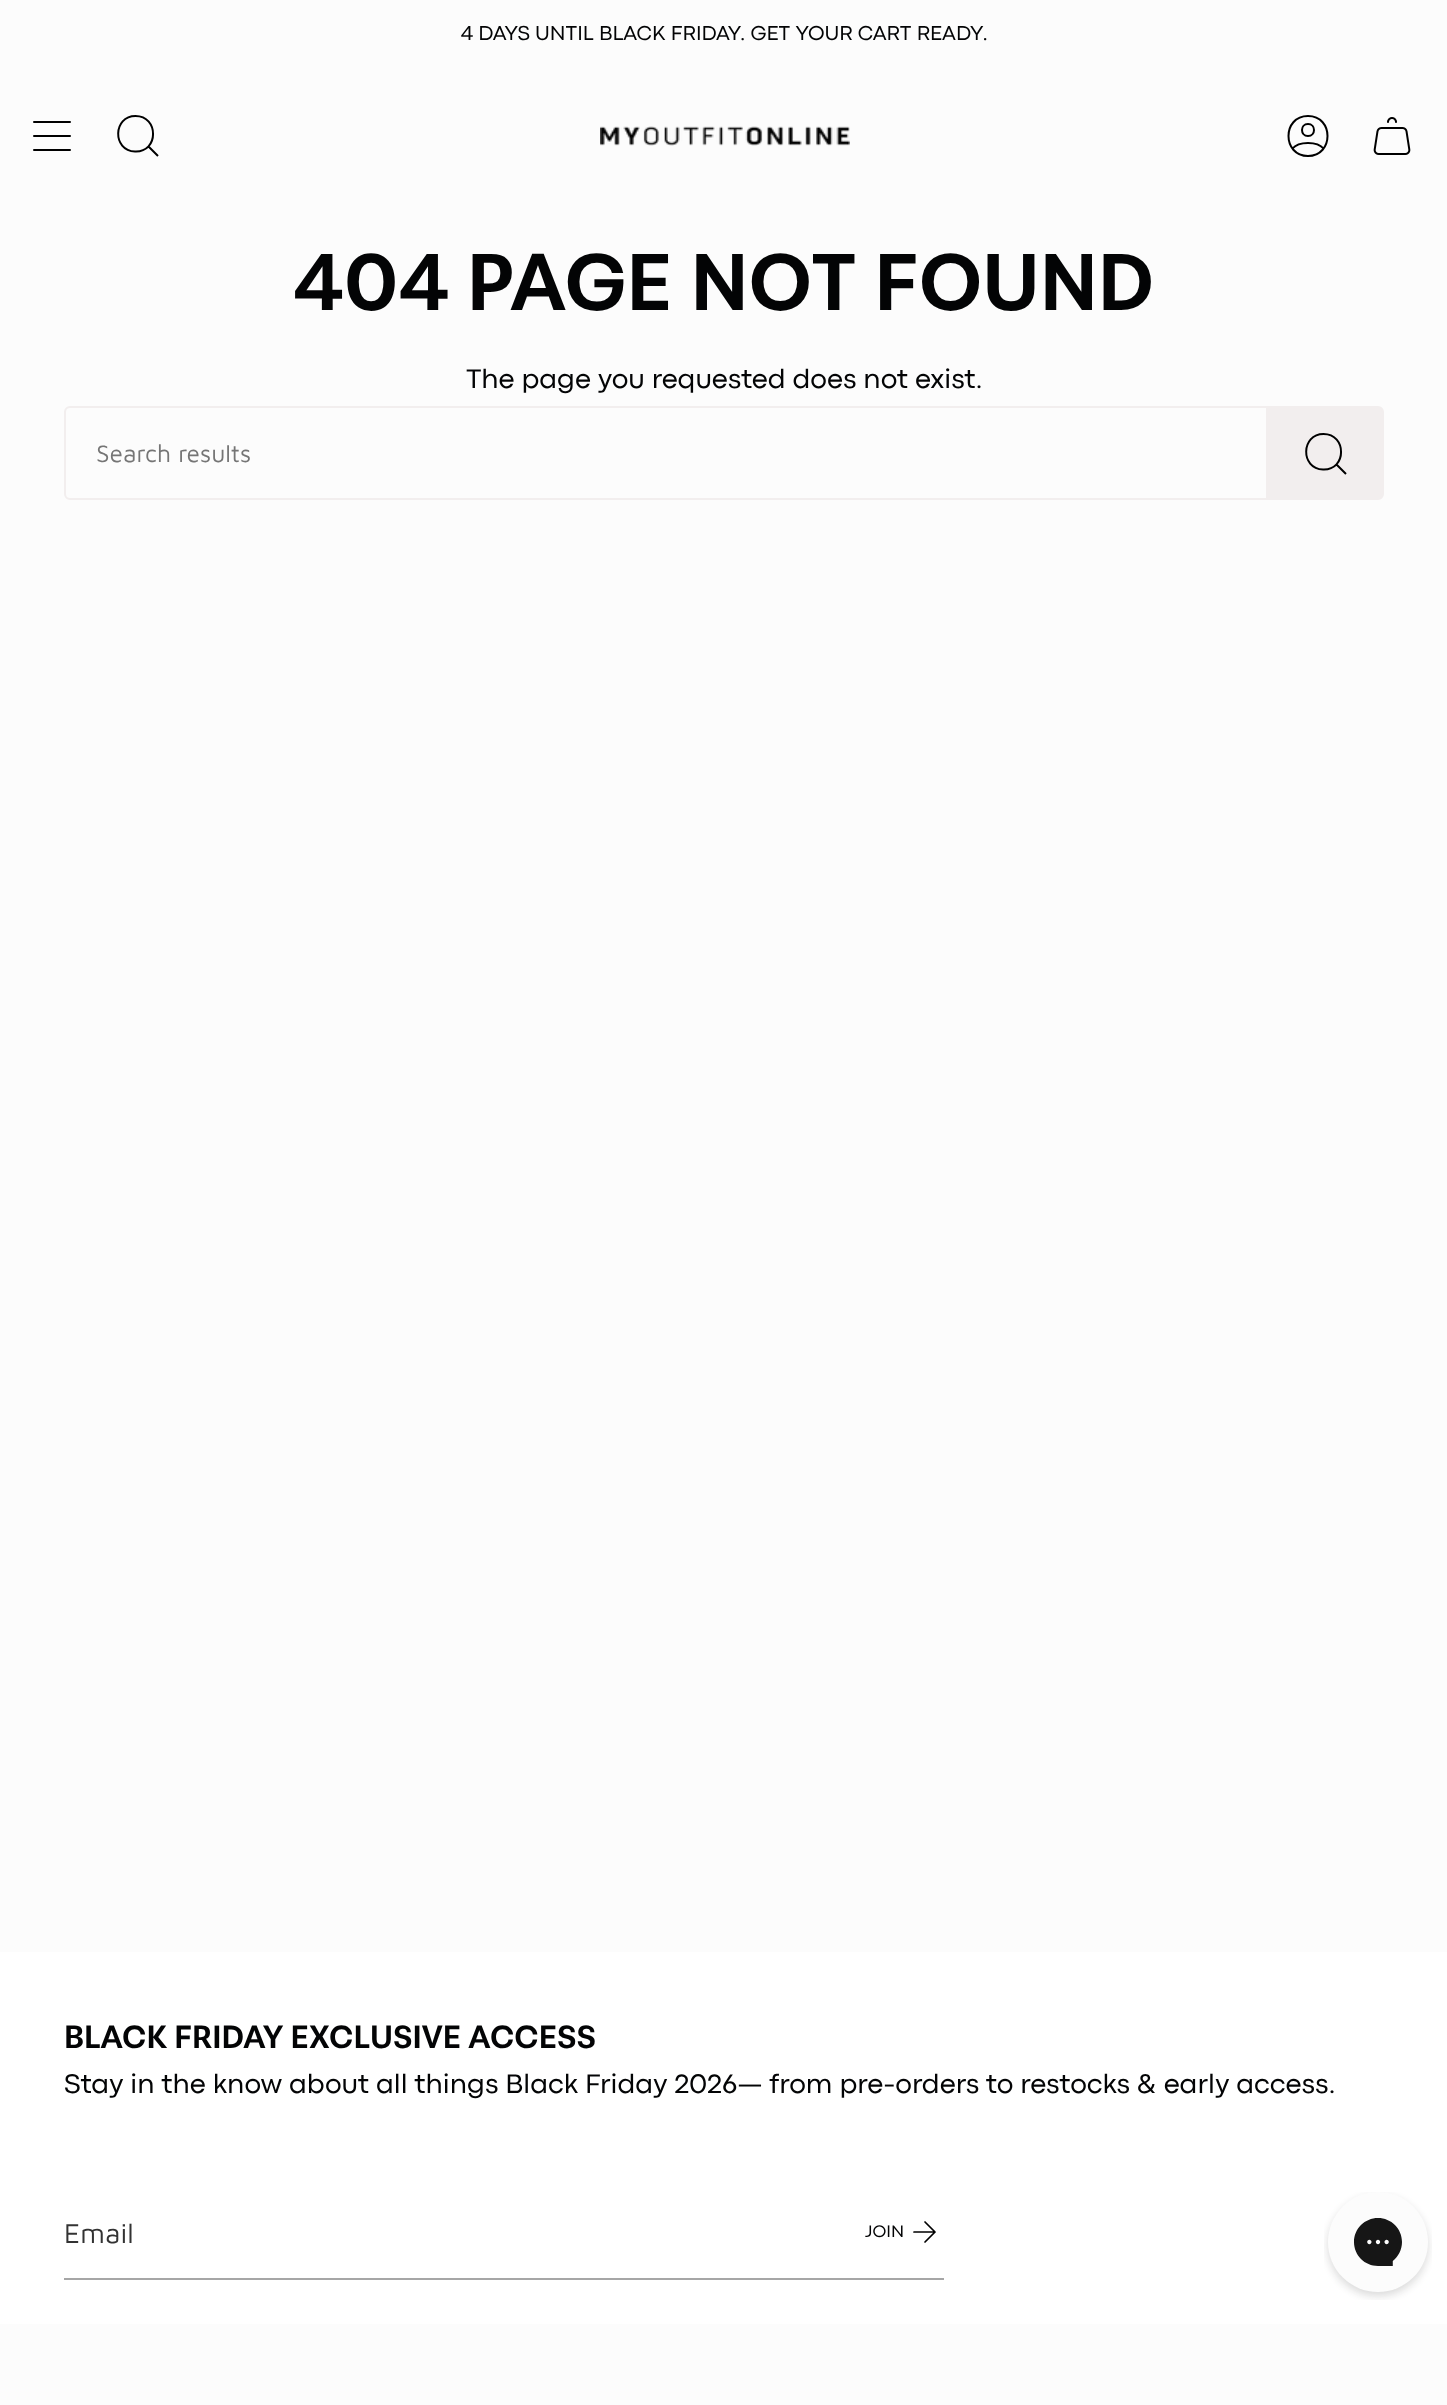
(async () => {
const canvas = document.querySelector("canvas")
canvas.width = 1447
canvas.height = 2405
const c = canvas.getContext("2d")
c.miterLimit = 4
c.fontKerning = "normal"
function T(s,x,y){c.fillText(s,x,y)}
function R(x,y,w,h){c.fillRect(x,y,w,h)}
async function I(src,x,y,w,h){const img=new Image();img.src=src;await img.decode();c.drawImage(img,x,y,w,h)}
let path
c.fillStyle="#fcfcfc"
R(0,0,1447,2405)
c.font="21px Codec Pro"
c.fillStyle="#030405"
T("4 DAYS UNTIL BLACK FRIDAY. GET YOUR CART READY.",461,40)
path = new Path2D("M34 122h36m-36 14h36m-36 14h36")
c.strokeStyle="#000"
c.lineWidth=2
c.lineCap="round"
c.lineJoin="round"
c.stroke(path)
path = new Path2D("M135.5 116c23.5 0 23.5 36.5-.5 35.5c-23-1-22-35.5 .5-35.5zm12.5 30l10 10")
c.lineCap="butt"
c.lineJoin="miter"
c.stroke(path)
await I("1.png",600,126,250,20)
path = new Path2D("M1308 116c-26 0-26 40 0 40c26 0 26-40 0-40zm-15.5 32.5c6-7.5 25-7.5 31 0m-15.5-12.5c8 0 8-12 0-12c-8 0-8 12 0 12z")
c.lineCap="round"
c.lineJoin="round"
c.stroke(path)
await I("2.png",1373,117,38,38)
c.font="bold 80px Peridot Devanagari"
T("404 PAGE NOT FOUND",293,310)
c.font="28px Codec Pro"
T("The page you requested does not exist.",466,388)
c.beginPath()
c.roundRect(65,407,1202,92,[5,0,0,5])
c.strokeStyle="#f2eeee"
c.lineJoin="miter"
c.stroke()
c.font="24.5px Maven Pro"
c.fillStyle="#757575"
T("Search results",96,462)
c.fillStyle="#f2eeee"
c.beginPath()
c.roundRect(1269,407,114,92,[0,5,5,0])
c.fill()
c.stroke()
path = new Path2D("M1323.5 434c23.5 0 23.5 36.5-.5 35.5c-23-1-22-35.5 .5-35.5zm12.5 30l10 10")
c.strokeStyle="#000"
c.lineCap="butt"
c.stroke(path)
c.fillStyle="#fff"
R(0,1952,1447,372)
c.font="bold 32px Peridot Devanagari"
c.fillStyle="#030405"
T("BLACK FRIDAY EXCLUSIVE ACCESS",64,2048)
c.font="28px Codec Pro"
T("Stay in the know about all things Black Friday 2026— from pre-orders to restocks & early access.",64,2093)
c.fillStyle="#a6a6a6"
R(64,2278,880,2)
c.font="28px Maven Pro"
c.fillStyle="#333"
T("Email",64,2243)
c.font="17.5px Codec Pro"
c.fillStyle="#030405"
T("JOIN",865,2237)
path = new Path2D("M914 2232h21m0 0l-10-10m10 10l-10 10")
c.lineWidth=1.7
c.lineCap="round"
c.lineJoin="round"
c.stroke(path)
await I("3.png",1324,2192,108,108)
})()
